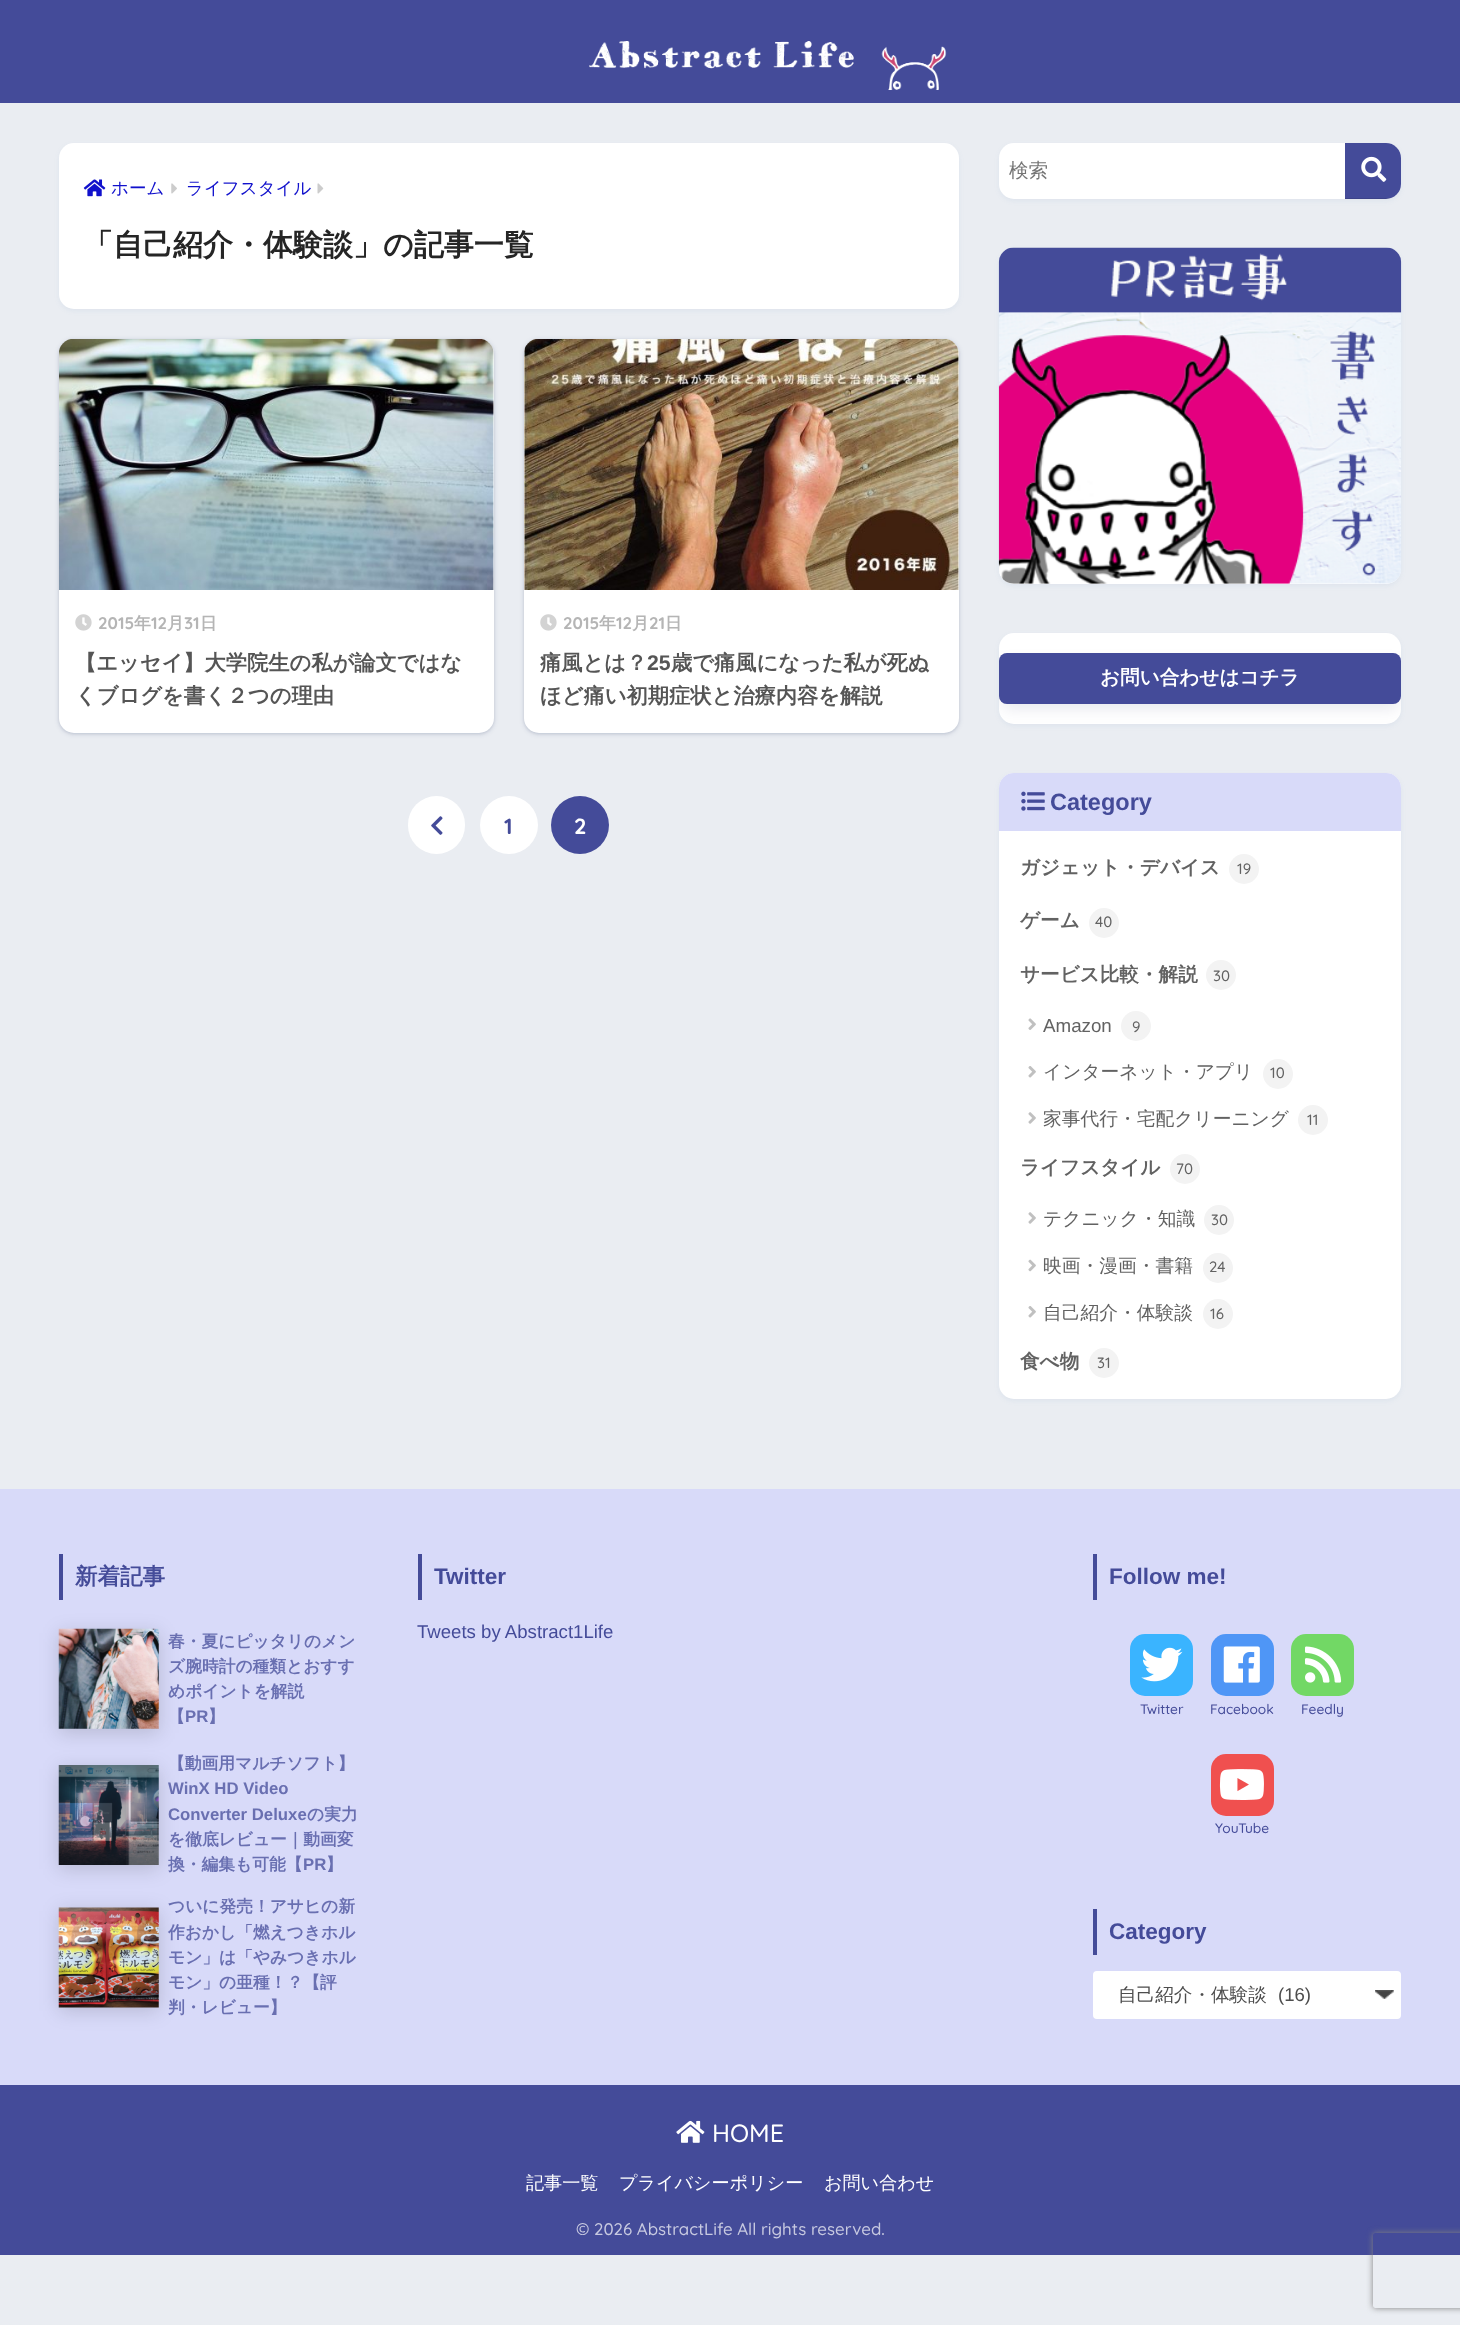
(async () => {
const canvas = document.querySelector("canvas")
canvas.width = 1460
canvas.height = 2325
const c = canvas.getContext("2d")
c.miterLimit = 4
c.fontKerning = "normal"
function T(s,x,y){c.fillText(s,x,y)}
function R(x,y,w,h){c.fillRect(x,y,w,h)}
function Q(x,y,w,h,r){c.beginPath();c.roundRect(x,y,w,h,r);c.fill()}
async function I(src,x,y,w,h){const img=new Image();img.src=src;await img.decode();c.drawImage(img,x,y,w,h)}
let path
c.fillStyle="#eaedf2"
R(0,0,1460,2325)
c.fillStyle="#444b99"
R(0,0,1460,103)
await I("1.png",589,41,358,49)
c.fillStyle="#4385bb12"
c.filter="blur(2.5px)"
c.beginPath()
c.roundRect(59,145,900,166,15)
c.fill()
c.filter="none"
c.fillStyle="#fff"
Q(59,143,900,166,15)
await I("2.png",83,179,23,18)
c.font="500 17.5px WenQuanYi Zen Hei"
c.fillStyle="#11c"
T("ホーム",111,194)
await I("3.png",171,183,6,11)
T("ライフスタイル",186,194)
await I("4.png",317,183,7,11)
c.font="bold 30px WenQuanYi Zen Hei"
c.fillStyle="#252525"
T("「自己紹介・体験談」の記事一覧",83,255)
c.fillStyle="#182c541a"
c.filter="blur(2px)"
c.beginPath()
c.roundRect(58,339,437,396,16)
c.fill()
c.filter="none"
c.filter="blur(1px)"
c.beginPath()
c.roundRect(59,340,435,394,15)
c.fill()
c.filter="none"
c.fillStyle="#fff"
Q(59,339,435,394,15)
await I("5.png",59,339,435,251)
await I("6.png",75,614,17,17)
c.font="bold 16.9px Quicksand"
c.fillStyle="#b5b5b5"
T("2015",98,629)
c.font="bold 16.9px WenQuanYi Zen Hei"
T("年",134,629)
c.font="bold 16.9px Quicksand"
T("12",151,629)
c.font="bold 16.9px WenQuanYi Zen Hei"
T("月",167,629)
c.font="bold 16.9px Quicksand"
T("31",184,629)
c.font="bold 16.9px WenQuanYi Zen Hei"
T("日",200,629)
c.font="bold 21.25px WenQuanYi Zen Hei"
c.fillStyle="#555"
T("【エッセイ】大学院生の私が論文ではな",75,670)
T("くブログを書く２つの理由",75,703)
c.fillStyle="#182c541a"
c.filter="blur(2px)"
c.beginPath()
c.roundRect(523,339,437,396,16)
c.fill()
c.filter="none"
c.filter="blur(1px)"
c.beginPath()
c.roundRect(524,340,435,394,15)
c.fill()
c.filter="none"
c.fillStyle="#fff"
Q(524,339,435,394,15)
await I("7.png",524,339,435,251)
await I("6.png",540,614,17,17)
c.font="bold 16.9px Quicksand"
c.fillStyle="#b5b5b5"
T("2015",563,629)
c.font="bold 16.9px WenQuanYi Zen Hei"
T("年",599,629)
c.font="bold 16.9px Quicksand"
T("12",616,629)
c.font="bold 16.9px WenQuanYi Zen Hei"
T("月",632,629)
c.font="bold 16.9px Quicksand"
T("21",649,629)
c.font="bold 16.9px WenQuanYi Zen Hei"
T("日",665,629)
c.font="bold 21.25px WenQuanYi Zen Hei"
c.fillStyle="#555"
T("痛風とは？",540,670)
c.font="bold 21.25px Liberation Sans"
T("25",647,670)
c.font="bold 21.25px WenQuanYi Zen Hei"
T("歳で痛風になった私が死ぬ",671,670)
T("ほど痛い初期症状と治療内容を解説",540,703)
c.fillStyle="#fff"
Q(408,796,57,58,28.5)
await I("8.png",431,816,12,19)
c.beginPath()
c.arc(509,825,29,0,7)
c.fill()
c.font="bold 22px Quicksand"
c.fillStyle="#444b99"
T("1",504,834)
c.beginPath()
c.arc(580,825,29,0,7)
c.fill()
c.fillStyle="#fff"
T("2",574,834)
c.fillStyle="#4385bb12"
c.filter="blur(2.5px)"
c.beginPath()
c.roundRect(999,145,402,56,15)
c.fill()
c.filter="none"
c.fillStyle="#fff"
Q(999,143,402,56,15)
c.font="500 19.6px WenQuanYi Zen Hei"
c.fillStyle="#757575"
T("検索",1009,177)
c.fillStyle="#444b99"
c.beginPath()
c.roundRect(1345,143,56,56,[0,15,15,0])
c.fill()
c.save()
c.beginPath()
c.roundRect(999,143,402,56,15)
c.clip()
c.fillStyle="#0000001a"
R(1345,198,53,1)
c.restore()
await I("9.png",1361,156,26,26)
c.fillStyle="#4385bb12"
c.filter="blur(2.5px)"
c.beginPath()
c.roundRect(999,250,402,336,15)
c.fill()
c.filter="none"
c.fillStyle="#fff"
Q(999,248,402,336,15)
await I("10.png",998,247,404,337)
c.fillStyle="#4385bb12"
c.filter="blur(2.5px)"
c.beginPath()
c.roundRect(999,635,402,91,15)
c.fill()
c.filter="none"
c.fillStyle="#fff"
Q(999,633,402,91,15)
c.fillStyle="#001e641a"
c.filter="blur(0.5px)"
c.beginPath()
c.roundRect(999,653,402,51,8)
c.fill()
c.filter="none"
c.save()
c.beginPath()
c.roundRect(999,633,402,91,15)
c.clip()
c.fillStyle="#000c421a"
c.filter="blur(8px)"
c.beginPath()
c.roundRect(1003,664,395,44,4)
c.fill()
c.filter="none"
c.restore()
c.fillStyle="#444b99"
Q(999,653,402,51,8)
c.font="bold 19.6px WenQuanYi Zen Hei"
c.fillStyle="#fff"
T("お問い合わせはコチラ",1100,684)
c.fillStyle="#4385bb12"
c.filter="blur(2.5px)"
c.beginPath()
c.roundRect(999,775,402,626,15)
c.fill()
c.filter="none"
c.fillStyle="#fff"
Q(999,773,402,626,15)
c.fillStyle="#d8daf9"
c.beginPath()
c.roundRect(999,773,402,58,[15,15,0,0])
c.fill()
await I("11.png",1021,791,24,20)
c.font="bold 23.5px Liberation Sans"
c.fillStyle="#444b99"
T("Category",1050,810)
c.font="bold 19.6px WenQuanYi Zen Hei"
c.fillStyle="#626262"
T("ガジェット・デバイス",1020,874)
c.fillStyle="#f3f3f3"
c.beginPath()
c.arc(1244,869,15,0,7)
c.fill()
c.font="500 15px Quicksand"
c.fillStyle="#626262"
T("19",1237,874)
c.font="bold 19.6px WenQuanYi Zen Hei"
T("ゲーム",1020,927)
c.fillStyle="#f3f3f3"
c.beginPath()
c.arc(1104,923,15,0,7)
c.fill()
c.font="500 15px Quicksand"
c.fillStyle="#626262"
T("40",1095,927)
c.font="bold 19.6px WenQuanYi Zen Hei"
T("サービス比較・解説",1020,981)
c.fillStyle="#f3f3f3"
c.beginPath()
c.arc(1221,975,15,0,7)
c.fill()
c.font="500 15px Quicksand"
c.fillStyle="#626262"
T("30",1213,981)
await I("12.png",1028,1018,8,12)
c.font="18.75px Liberation Sans"
T("Amazon",1043,1032)
c.fillStyle="#f3f3f3"
c.beginPath()
c.arc(1136,1026,15,0,7)
c.fill()
c.font="500 15px Quicksand"
c.fillStyle="#626262"
T("9",1132,1032)
await I("13.png",1028,1066,8,12)
c.font="500 18.75px WenQuanYi Zen Hei"
T("インターネット・アプリ",1043,1078)
c.fillStyle="#f3f3f3"
c.beginPath()
c.arc(1278,1074,15,0,7)
c.fill()
c.font="500 15px Quicksand"
c.fillStyle="#626262"
T("10",1270,1078)
await I("14.png",1028,1112,8,12)
c.font="500 18.75px WenQuanYi Zen Hei"
T("家事代行・宅配クリーニング",1043,1125)
c.fillStyle="#f3f3f3"
c.beginPath()
c.arc(1313,1120,15,0,7)
c.fill()
c.font="500 15px Quicksand"
c.fillStyle="#626262"
T("11",1307,1125)
c.font="bold 19.6px WenQuanYi Zen Hei"
T("ライフスタイル",1020,1174)
c.fillStyle="#f3f3f3"
c.beginPath()
c.arc(1185,1169,15,0,7)
c.fill()
c.font="500 15px Quicksand"
c.fillStyle="#626262"
T("70",1176,1174)
await I("14.png",1028,1212,8,12)
c.font="500 18.75px WenQuanYi Zen Hei"
T("テクニック・知識",1043,1225)
c.fillStyle="#f3f3f3"
c.beginPath()
c.arc(1219,1220,15,0,7)
c.fill()
c.font="500 15px Quicksand"
c.fillStyle="#626262"
T("30",1211,1225)
await I("15.png",1028,1259,8,13)
c.font="500 18.75px WenQuanYi Zen Hei"
T("映画・漫画・書籍",1043,1272)
c.fillStyle="#f3f3f3"
c.beginPath()
c.arc(1218,1268,15,0,7)
c.fill()
c.font="500 15px Quicksand"
c.fillStyle="#626262"
T("24",1209,1272)
await I("13.png",1028,1306,8,12)
c.font="500 18.75px WenQuanYi Zen Hei"
T("自己紹介・体験談",1043,1319)
c.fillStyle="#f3f3f3"
c.beginPath()
c.arc(1218,1314,15,0,7)
c.fill()
c.font="500 15px Quicksand"
c.fillStyle="#626262"
T("16",1210,1319)
c.font="bold 19.6px WenQuanYi Zen Hei"
T("食べ物",1020,1368)
c.fillStyle="#f3f3f3"
c.beginPath()
c.arc(1104,1363,15,0,7)
c.fill()
c.font="500 15px Quicksand"
c.fillStyle="#626262"
T("31",1097,1368)
c.fillStyle="#d8daf9"
R(0,1489,1460,596)
c.fillStyle="#444b99"
R(59,1554,4,46)
c.font="bold 22.5px WenQuanYi Zen Hei"
T("新着記事",75,1584)
c.fillStyle="#00000026"
c.filter="blur(9.5px)"
c.beginPath()
c.rect(59,1633,100,100)
c.fill()
c.filter="none"
await I("16.png",58,1628,101,101)
c.font="bold 16.75px WenQuanYi Zen Hei"
c.fillStyle="#696fb1"
T("春・夏にピッタリのメン",168,1647)
T("ズ腕時計の種類とおすす",168,1672)
T("めポイントを解説",168,1697)
T("【",168,1722)
c.font="bold 16.75px Liberation Sans"
T("PR",185,1722)
c.font="bold 16.75px WenQuanYi Zen Hei"
T("】",208,1722)
c.fillStyle="#00000026"
c.filter="blur(9.5px)"
c.beginPath()
c.rect(59,1769,100,100)
c.fill()
c.filter="none"
await I("17.png",58,1765,101,100)
c.fillStyle="#696fb1"
T("【動画用マルチソフト】",168,1769)
c.font="bold 16.75px Liberation Sans"
T("WinX HD Video",168,1794)
T("Converter Deluxe",168,1820)
c.font="bold 16.75px WenQuanYi Zen Hei"
T("の実力",307,1820)
T("を徹底レビュー｜動画変",168,1845)
T("換・編集も可能【",168,1870)
c.font="bold 16.75px Liberation Sans"
T("PR",303,1870)
c.font="bold 16.75px WenQuanYi Zen Hei"
T("】",326,1870)
c.fillStyle="#00000026"
c.filter="blur(9.5px)"
c.beginPath()
c.rect(59,1911,100,100)
c.fill()
c.filter="none"
await I("18.png",58,1907,101,101)
c.fillStyle="#696fb1"
T("ついに発売！アサヒの新",168,1912)
T("作おかし「燃えつきホル",168,1938)
T("モン」は「やみつきホル",168,1963)
T("モン」の亜種！？【評",168,1988)
T("判・レビュー】",168,2013)
c.fillStyle="#444b99"
R(418,1554,4,46)
c.font="bold 22.5px Liberation Sans"
T("Twitter",434,1584)
c.font="18.6px Liberation Sans"
T("Tweets by Abstract1Life",417,1638)
R(1093,1554,4,46)
c.font="bold 22.5px Liberation Sans"
T("Follow me!",1109,1584)
c.fillStyle="#3ab4ff"
Q(1130,1634,63,62,15)
await I("19.png",1141,1647,42,35)
c.font="500 13.75px Quicksand"
c.fillStyle="#444b99"
T("Twitter",1140,1714)
c.fillStyle="#4f96f6"
Q(1211,1634,63,62,15)
await I("20.png",1223,1646,37,37)
c.fillStyle="#444b99"
T("Facebook",1210,1714)
c.fillStyle="#72d865"
Q(1291,1634,63,62,15)
await I("21.png",1305,1646,37,37)
c.fillStyle="#444b99"
T("Feedly",1301,1714)
c.fillStyle="#f0504f"
Q(1211,1754,63,62,15)
await I("22.png",1219,1769,45,31)
c.fillStyle="#444b99"
T("YouTube",1215,1833)
R(1093,1909,4,46)
c.font="bold 22.5px Liberation Sans"
T("Category",1109,1939)
c.fillStyle="#fff"
Q(1093,1971,308,48,4)
await I("23.png",1375,1990,19,9)
c.font="500 18.6px WenQuanYi Zen Hei"
c.fillStyle="#4d4d4d"
T("自己紹介・体験談",1118,2001)
c.font="18.6px Liberation Sans"
T("(16)",1278,2001)
c.fillStyle="#444b99"
R(0,2085,1460,170)
await I("24.png",676,2120,29,23)
c.font="500 25px Quicksand"
c.fillStyle="#fff"
T("HOME",712,2142)
c.font="500 18.1px WenQuanYi Zen Hei"
T("記事一覧",526,2189)
T("プライバシーポリシー",619,2189)
T("お問い合わせ",824,2189)
c.font="500 16.9px Quicksand"
c.fillStyle="#c7c9e0"
T("© 2026 AbstractLife All rights reserved.",576,2235)
c.save()
path = new Path2D("M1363 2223h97v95h-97zm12.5 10h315c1.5 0 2.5 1 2.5 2.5v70c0 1.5-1 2.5-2.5 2.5h-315c-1.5 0-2.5-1-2.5-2.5v-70c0-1.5 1-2.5 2.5-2.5z")
c.clip(path,"evenodd")
c.fillStyle="#808080"
c.filter="blur(3px)"
c.beginPath()
c.roundRect(1373,2233,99,75,2.5)
c.fill()
c.filter="none"
c.restore()
})()
